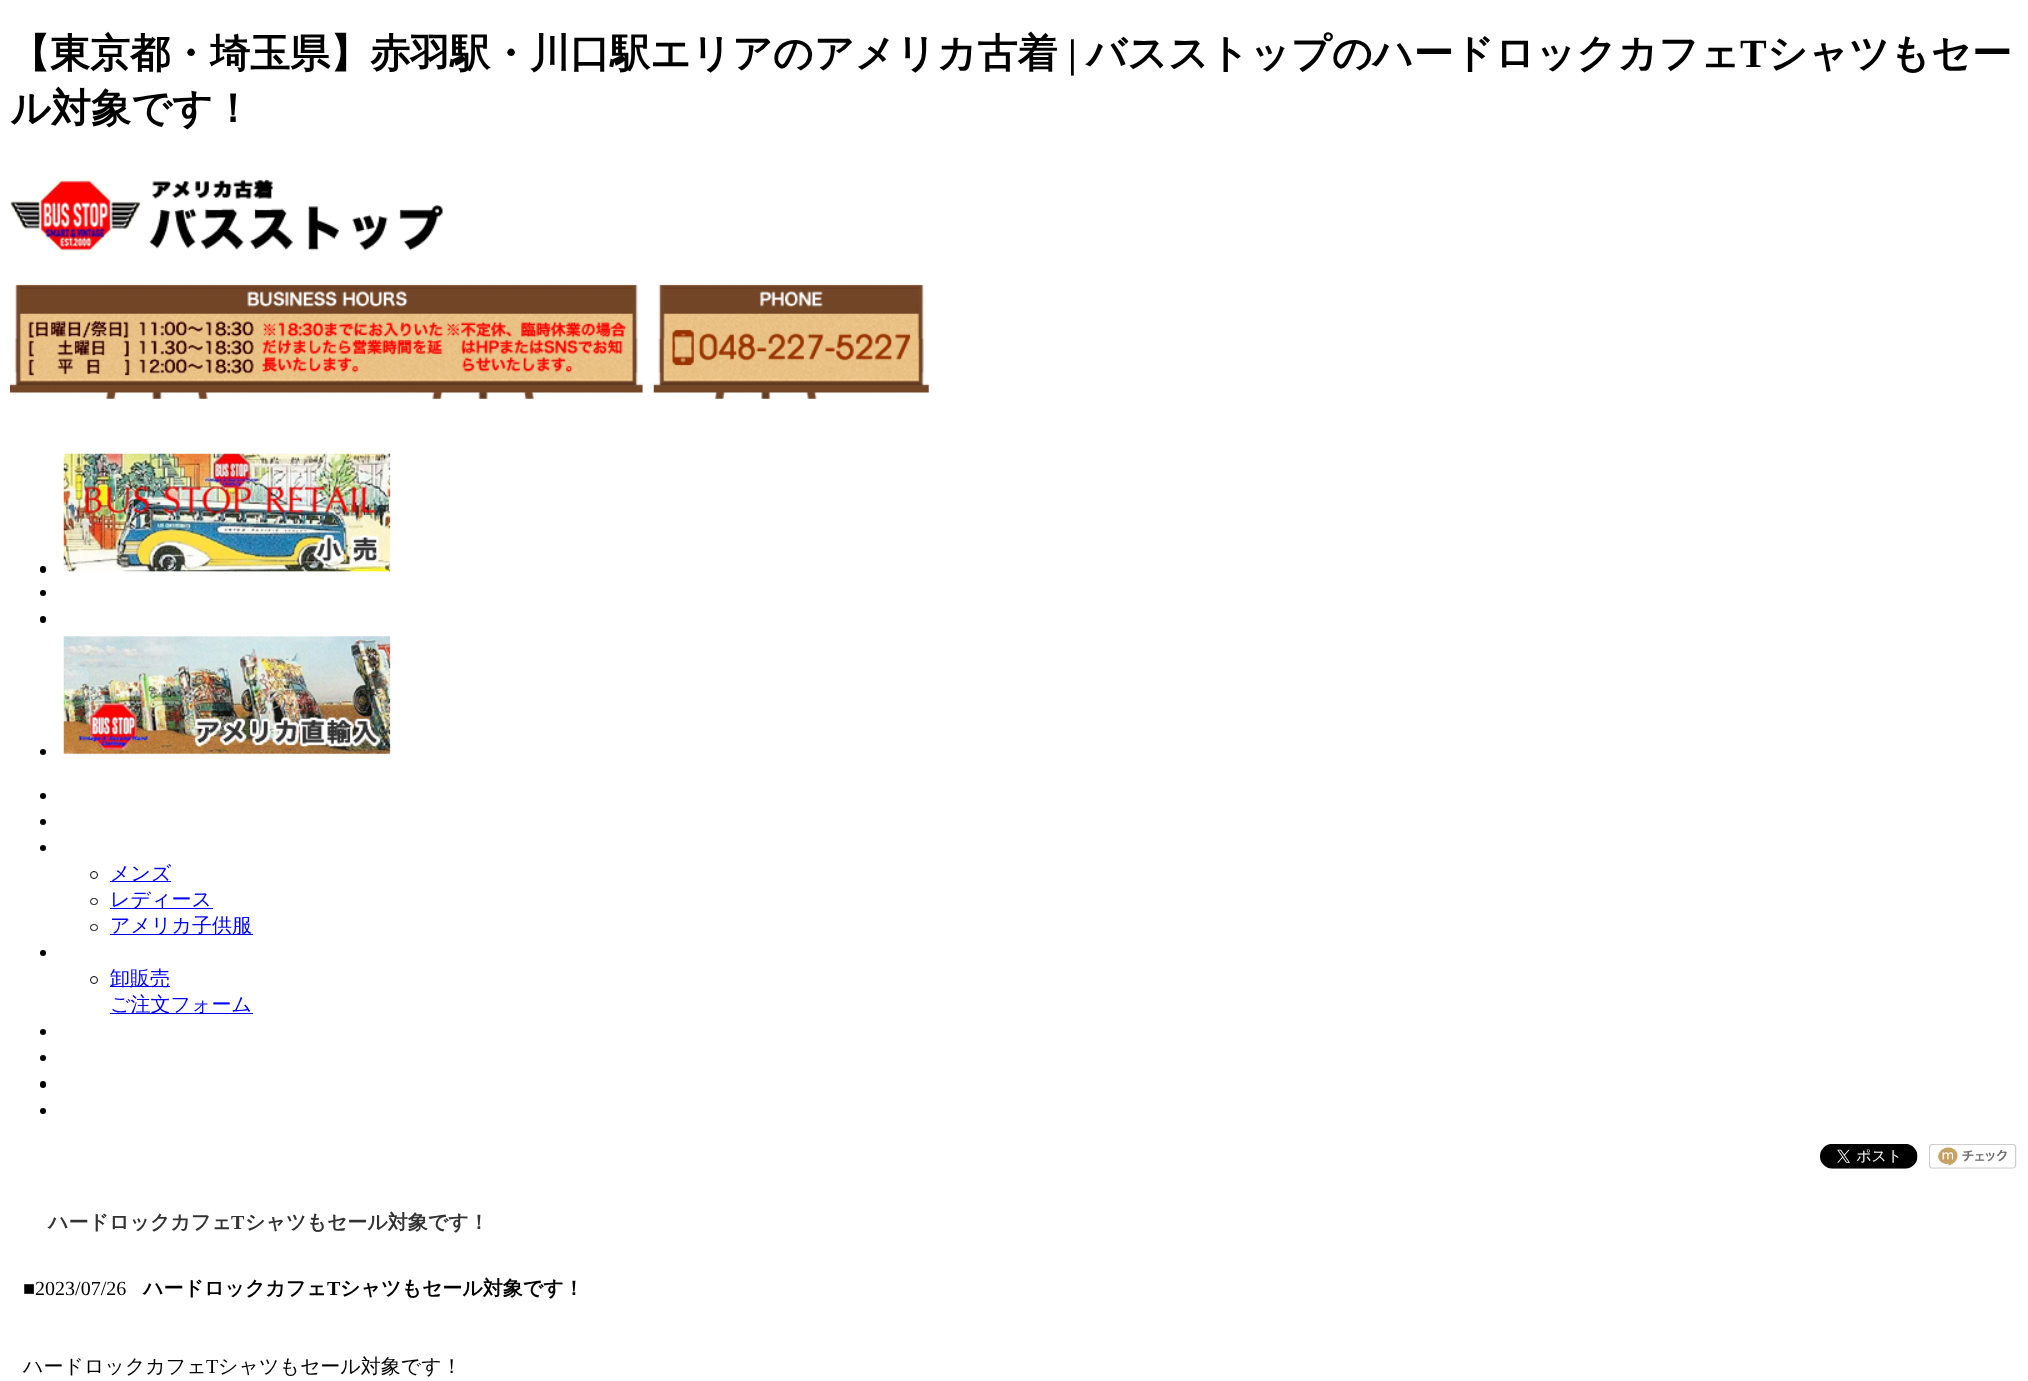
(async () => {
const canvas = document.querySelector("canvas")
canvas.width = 2028
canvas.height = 1381
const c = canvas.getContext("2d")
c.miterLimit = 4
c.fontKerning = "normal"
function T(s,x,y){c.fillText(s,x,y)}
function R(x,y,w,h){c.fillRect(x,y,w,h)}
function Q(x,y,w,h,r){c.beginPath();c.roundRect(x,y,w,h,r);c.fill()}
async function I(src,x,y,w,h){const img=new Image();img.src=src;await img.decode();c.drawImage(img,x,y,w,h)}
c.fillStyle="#fff"
R(0,0,2028,1381)
c.font="bold 40px WenQuanYi Zen Hei"
c.fillStyle="#000"
T("【東京都・埼玉県】赤羽駅・川口駅エリアのアメリカ古着",10,67)
c.font="bold 40px Liberation Serif"
T("|",1068,67)
c.font="bold 40px WenQuanYi Zen Hei"
T("バスストップのハードロックカフェ",1086,67)
c.font="bold 40px Liberation Serif"
T("T",1740,67)
c.font="bold 40px WenQuanYi Zen Hei"
T("シャツもセー",1767,67)
T("ル対象です！",10,122)
await I("1.png",10,177,433,76)
await I("2.png",10,284,919,115)
Q(40,566,6,7,3)
await I("3.png",63,453,328,119)
c.beginPath()
c.arc(43,593,3,0,7)
c.fill()
Q(40,616,6,7,3)
c.beginPath()
c.arc(43,752,3,0,7)
c.fill()
await I("4.png",63,636,328,118)
c.beginPath()
c.arc(43,796,3,0,7)
c.fill()
c.beginPath()
c.arc(43,822,3,0,7)
c.fill()
c.beginPath()
c.arc(43,848,3,0,7)
c.fill()
c.beginPath()
c.arc(94,875,3.5,0,7)
c.strokeStyle="#000"
c.stroke()
c.fillStyle="#00e"
R(110,881,61,1)
c.font="500 20px WenQuanYi Zen Hei"
T("メンズ",110,880)
c.beginPath()
c.roundRect(90.5,898.5,7,6,3)
c.stroke()
R(110,908,103,1)
T("レディース",110,906)
c.beginPath()
c.roundRect(90.5,924.5,7,6,3)
c.stroke()
R(110,934,143,1)
T("アメリカ子供服",110,932)
c.fillStyle="#000"
c.beginPath()
c.arc(43,953,3,0,7)
c.fill()
c.beginPath()
c.arc(94,980,3.5,0,7)
c.stroke()
c.fillStyle="#00e"
R(110,986,60,1)
T("卸販売",110,985)
R(110,1013,143,1)
T("ご注文フォーム",110,1011)
c.fillStyle="#000"
c.beginPath()
c.arc(43,1032,3,0,7)
c.fill()
c.beginPath()
c.arc(43,1058,3,0,7)
c.fill()
Q(40,1081,6,7,3)
c.beginPath()
c.arc(43,1111,3,0,7)
c.fill()
await I("5.png",1820,1144,98,25)
await I("6.png",1929,1144,88,25)
c.font="bold 20px WenQuanYi Zen Hei"
c.fillStyle="#333"
T("ハードロックカフェ",48,1229)
c.font="bold 20px Liberation Serif"
T("T",231,1229)
c.font="bold 20px WenQuanYi Zen Hei"
T("シャツもセール対象です！",245,1229)
c.font="20px Liberation Serif"
c.fillStyle="#000"
T("■2023/07/26",23,1295)
c.font="bold 20px WenQuanYi Zen Hei"
T("ハードロックカフェ",143,1295)
c.font="bold 20px Liberation Serif"
T("T",327,1295)
c.font="bold 20px WenQuanYi Zen Hei"
T("シャツもセール対象です！",340,1295)
c.font="500 20px WenQuanYi Zen Hei"
T("ハードロックカフェ",23,1373)
c.font="20px Liberation Serif"
T("T",206,1373)
c.font="500 20px WenQuanYi Zen Hei"
T("シャツもセール対象です！",218,1373)
})()
